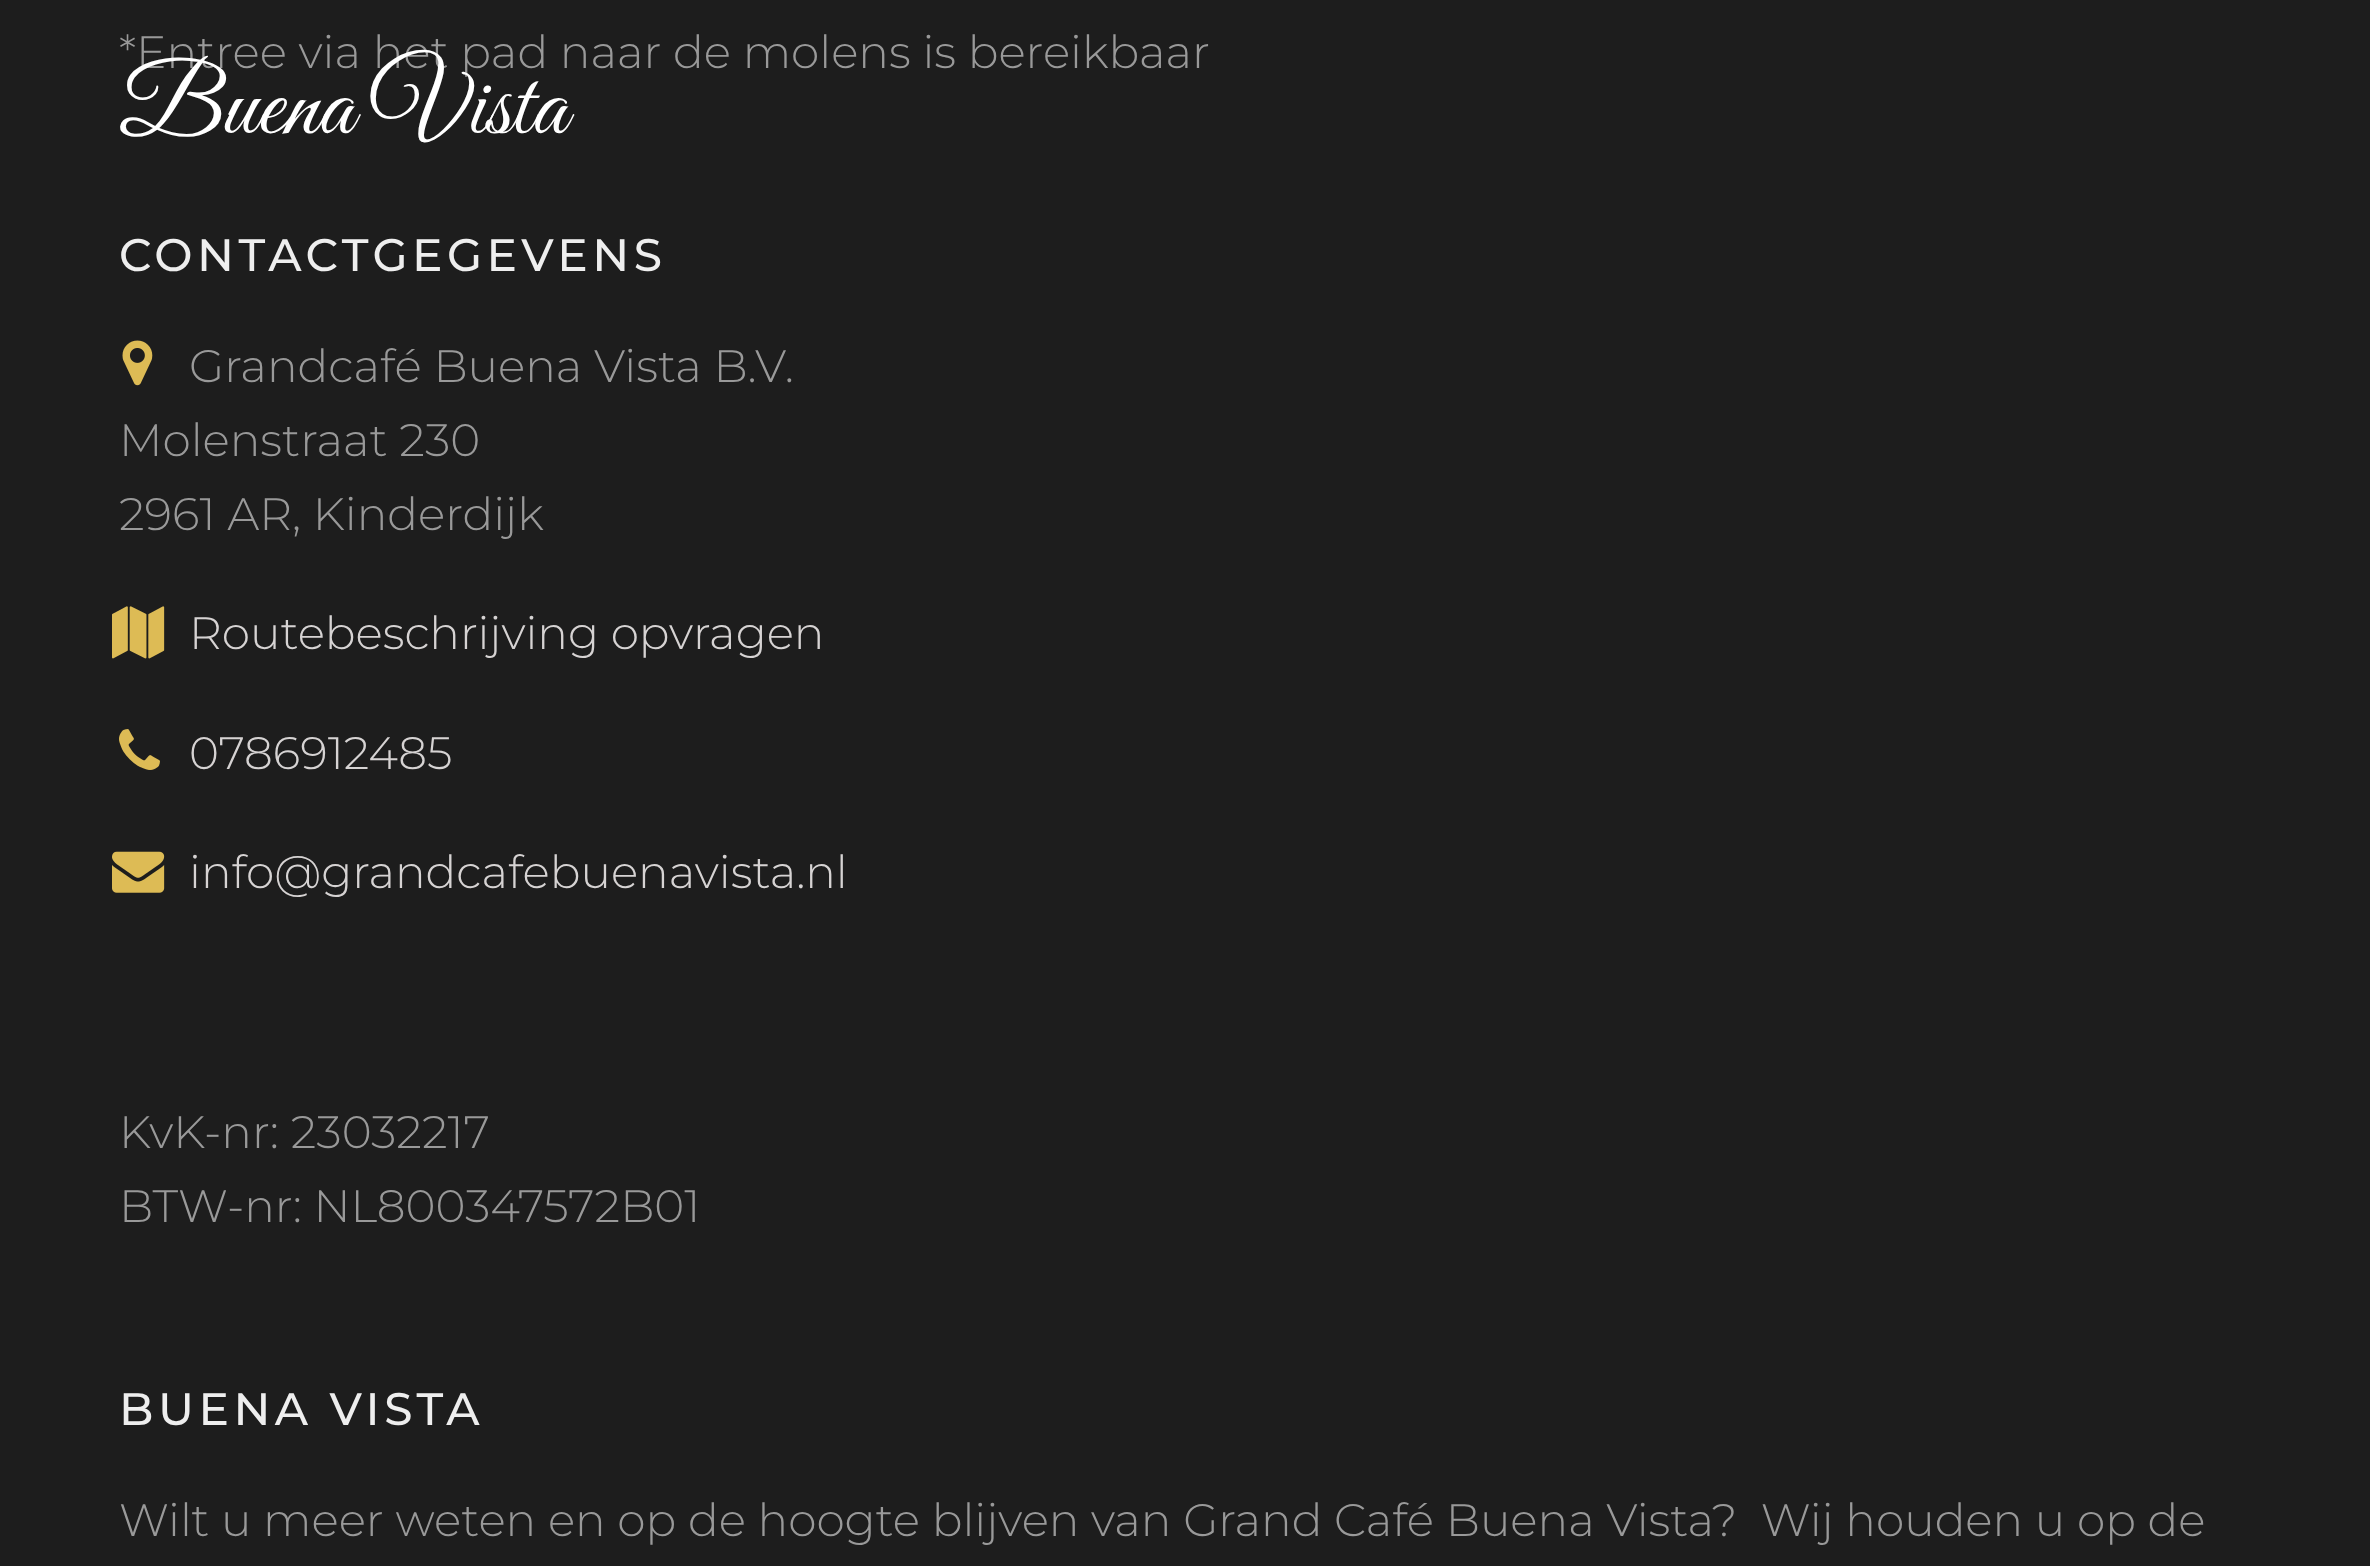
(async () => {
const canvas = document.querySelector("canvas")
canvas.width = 2370
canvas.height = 1566
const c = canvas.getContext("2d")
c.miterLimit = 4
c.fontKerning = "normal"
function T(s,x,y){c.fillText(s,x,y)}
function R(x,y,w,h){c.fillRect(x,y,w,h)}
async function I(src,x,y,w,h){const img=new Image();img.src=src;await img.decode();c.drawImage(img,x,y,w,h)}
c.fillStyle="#1d1d1d"
R(0,0,2370,1566)
c.font="300 45.5px Montserrat"
c.fillStyle="#999"
T("*Entree via het pad naar de molens is bereikbaar",119,68)
c.letterSpacing="4.5px"
c.font="500 45.5px Montserrat"
c.fillStyle="#eee"
T("CONTACTGEGEVENS",119,271)
await I("1.png",122,340,31,46)
c.letterSpacing="0px"
c.font="300 45.5px Montserrat"
c.fillStyle="#999"
T("Grandcafé Buena Vista B.V.",189,382)
T("Molenstraat 230",119,456)
T("2961 AR, Kinderdijk",119,530)
await I("2.png",112,606,53,53)
c.fillStyle="#d6d3d3"
T("Routebeschrijving opvragen",189,649)
await I("3.png",119,729,41,41)
T("0786912485",189,769)
await I("4.png",112,851,53,42)
T("info@grandcafebuenavista.nl",189,888)
c.fillStyle="#999"
T("KvK-nr: 23032217",119,1148)
T("BTW-nr: NL800347572B01",119,1222)
c.letterSpacing="4.5px"
c.font="500 45.5px Montserrat"
c.fillStyle="#eee"
T("BUENA VISTA",119,1425)
c.letterSpacing="0px"
c.font="300 45.5px Montserrat"
c.fillStyle="#999"
T("Wilt u meer weten en op de hoogte blijven van Grand Café Buena Vista?  Wij houden u op de",119,1536)
c.font="98px Great Vibes"
c.fillStyle="#fff"
T("Buena Vista",119,133)
})()
